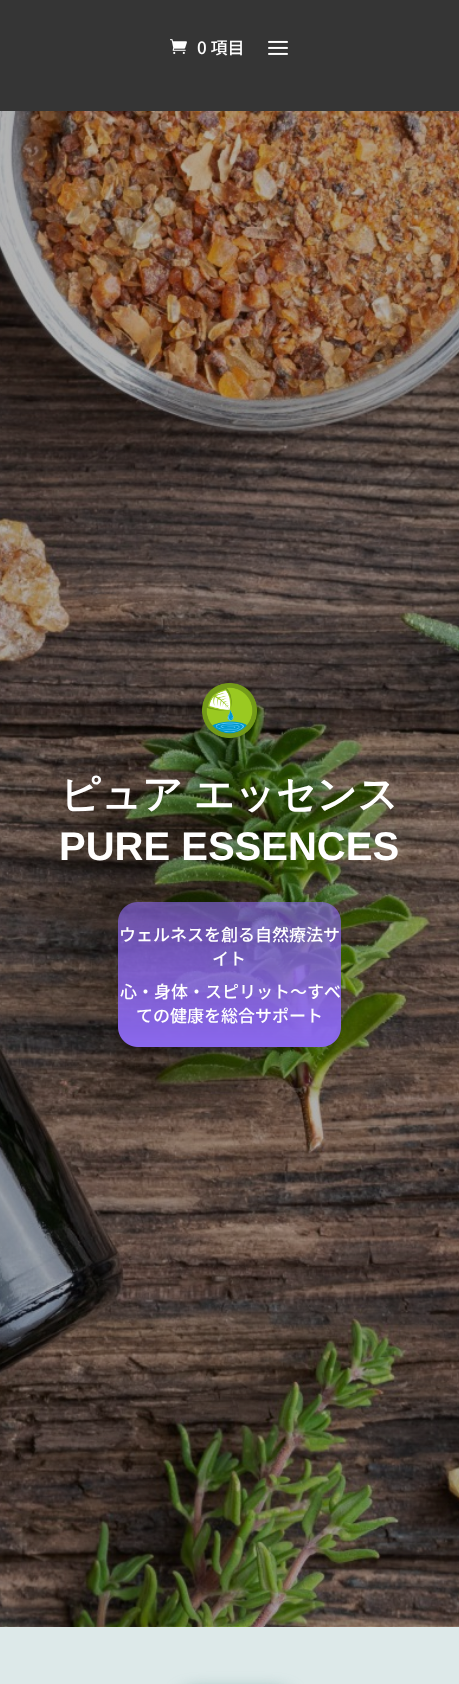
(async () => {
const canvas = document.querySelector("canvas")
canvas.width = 459
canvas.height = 1684
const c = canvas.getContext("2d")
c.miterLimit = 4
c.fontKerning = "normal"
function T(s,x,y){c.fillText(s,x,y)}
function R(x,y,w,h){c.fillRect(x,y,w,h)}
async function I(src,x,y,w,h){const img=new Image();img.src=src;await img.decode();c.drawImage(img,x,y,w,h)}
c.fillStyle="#fff"
R(0,0,459,1684)
c.fillStyle="#353535"
R(0,0,459,111)
await I("1.png",170,39,17,15)
c.font="500 17px Noto Sans JP"
c.fillStyle="#fff"
T("0 項目",197,54)
await I("2.png",268,40,20,15)
await I("3.png",0,111,459,1516)
await I("4.png",202,683,55,55)
c.wordSpacing="-1px"
c.font="bold 40px WenQuanYi Zen Hei"
T("ピュア エッセンス",60,808)
c.wordSpacing="0px"
c.font="bold 40px Liberation Sans"
T("PURE ESSENCES",59,860)
c.font="500 17px Noto Sans JP"
T("ウェルネスを創る自然療法サ",119,941)
T("イト",212,965)
T("心・身体・スピリット〜すべ",120,998)
T("ての健康を総合サポート",136,1022)
c.fillStyle="#dde9e9"
R(0,1627,459,57)
c.fillStyle="#579392"
c.filter="blur(9px)"
c.beginPath()
c.roundRect(180,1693,111,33,15)
c.fill()
c.filter="none"
})()
